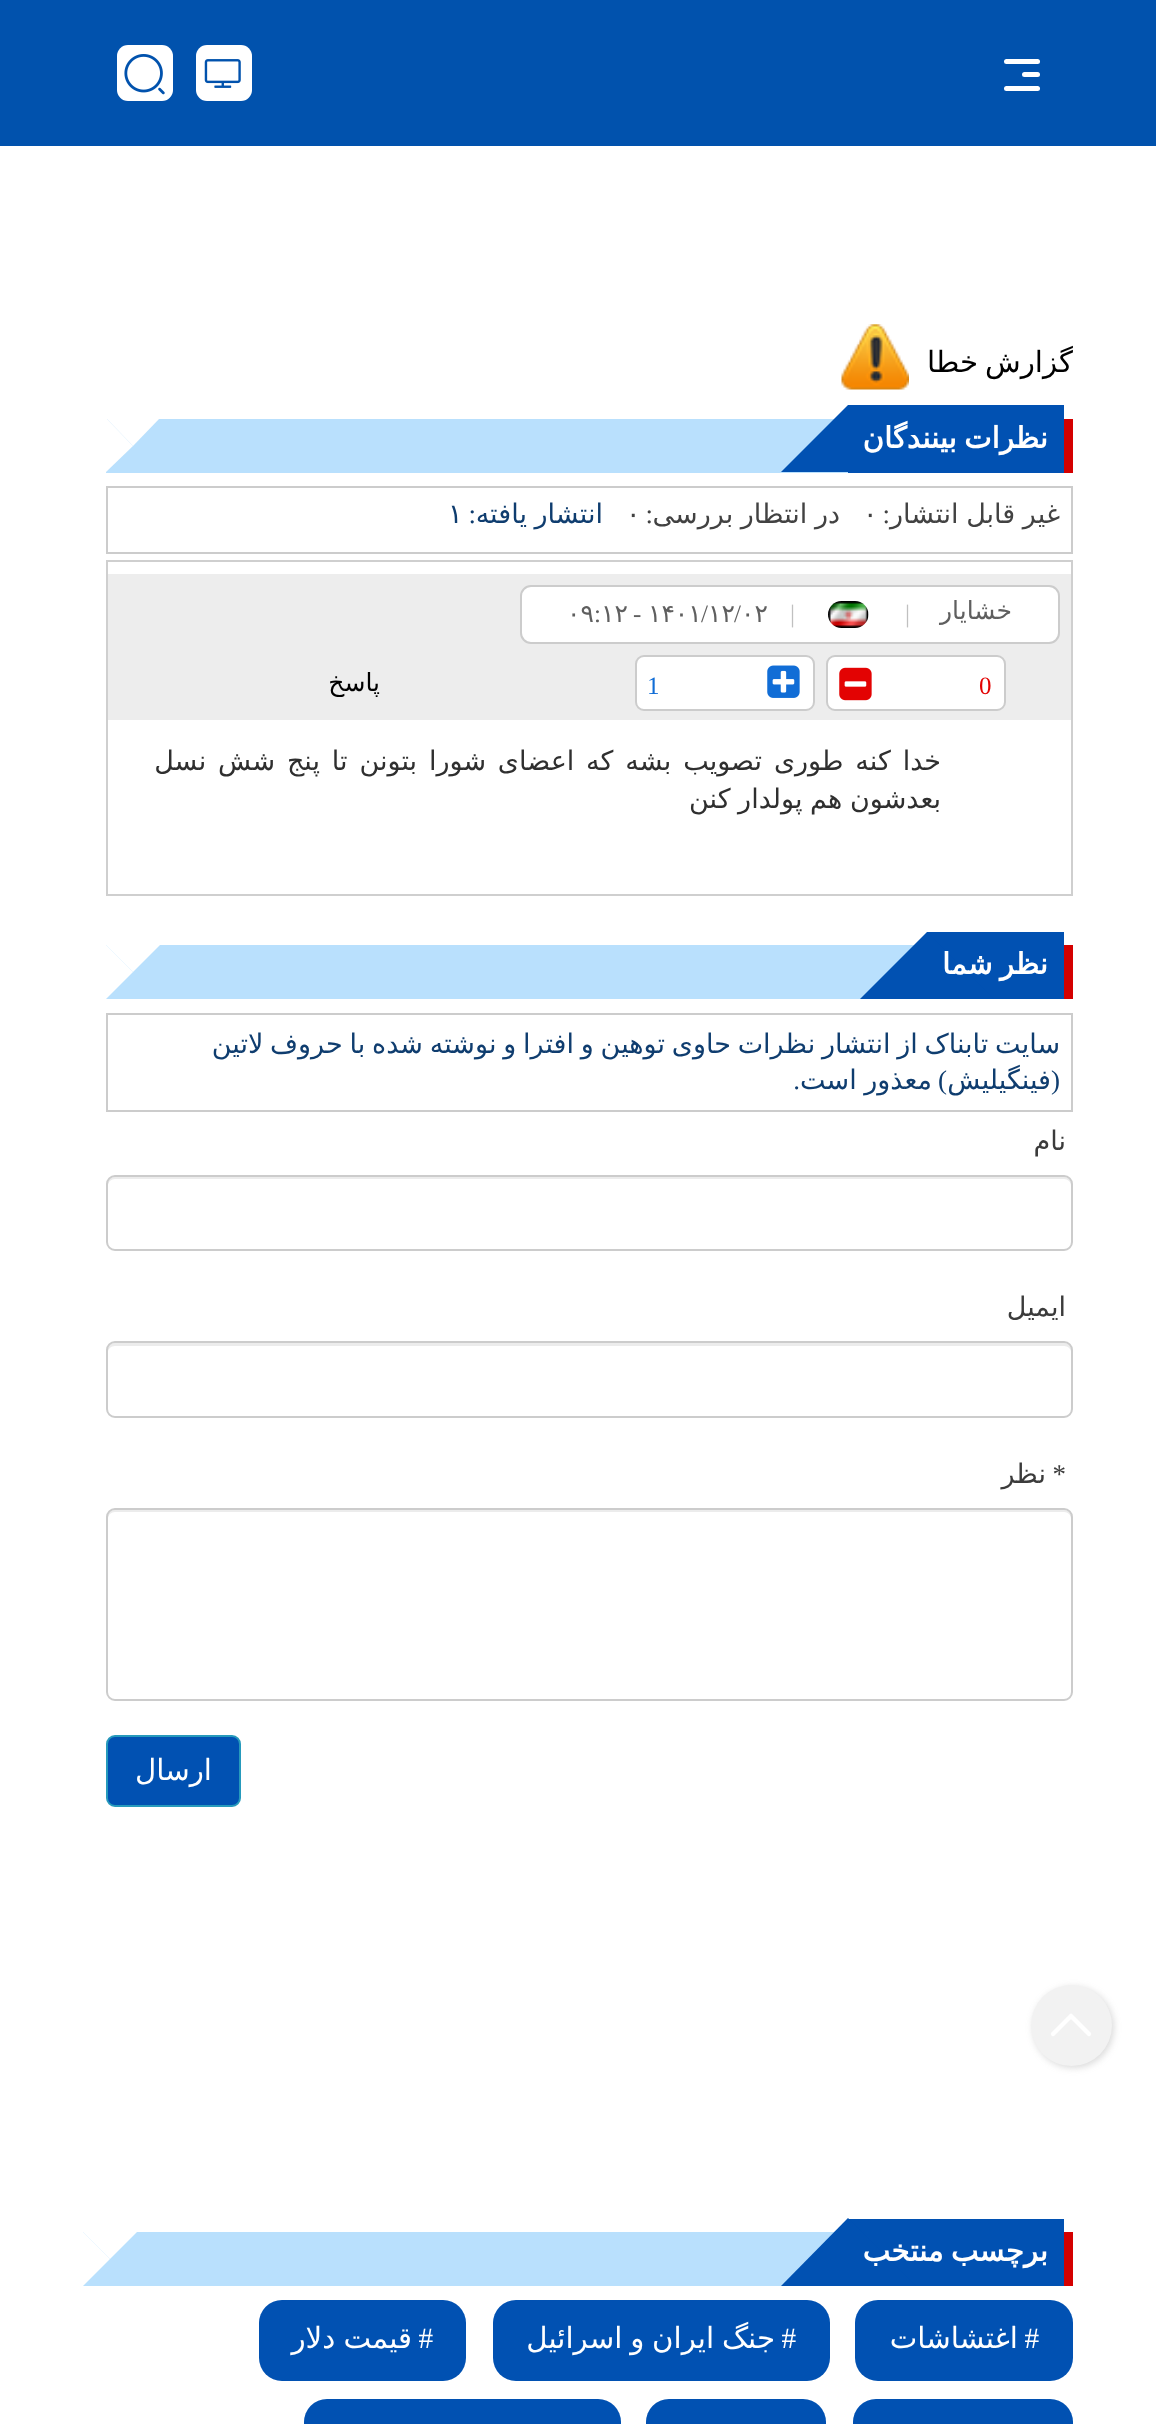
(async () => {
const canvas = document.querySelector("canvas")
canvas.width = 1156
canvas.height = 2424
const c = canvas.getContext("2d")
c.miterLimit = 4
c.fontKerning = "normal"
function T(s,x,y){c.fillText(s,x,y)}
function R(x,y,w,h){c.fillRect(x,y,w,h)}
function Q(x,y,w,h,r){c.beginPath();c.roundRect(x,y,w,h,r);c.fill()}
async function I(src,x,y,w,h){const img=new Image();img.src=src;await img.decode();c.drawImage(img,x,y,w,h)}
let path
c.fillStyle="#fff"
R(0,0,1156,2424)
c.fillStyle="#0152ad"
R(0,0,1156,146)
c.fillStyle="#fff"
Q(1004,59,36,5,2.5)
Q(1022,72,18,5,2.5)
Q(1004,86,36,5,2.5)
Q(196,45,56,56,11)
await I("1.png",204,59,37,29)
Q(117,45,56,56,11)
await I("2.png",124,54,41,41)
c.fillStyle="#78787845"
c.filter="blur(3.5px)"
c.beginPath()
c.roundRect(1033,1987,81,81,40.5)
c.fill()
c.filter="none"
c.fillStyle="#f2f2f2"
c.beginPath()
c.arc(1071.5,2025.5,40.5,0,7)
c.fill()
path = new Path2D("M1053 2034l18-18l18 18")
c.strokeStyle="#fff"
c.lineWidth=4.5
c.lineCap="round"
c.lineJoin="round"
c.stroke(path)
await I("3.png",841,324,68,66)
c.direction="rtl"
c.font="29.25px DejaVu Sans"
c.fillStyle="#000"
T("گزارش",1073,372)
T("خطا",978,372)
c.fillStyle="#b9e0fd"
R(106,419,742,54)
c.fillStyle="#d40000"
R(1064,419,9,54)
c.fillStyle="#0151b2"
R(848,405,216,68)
path = new Path2D("M916 472h-135l67-67z")
c.fill(path)
c.wordSpacing="-2px"
c.font="bold 29.25px DejaVu Sans"
c.fillStyle="#fff"
T("نظرات بینندگان",1048,448)
path = new Path2D("M106 418h54l-27 28z")
c.fill(path)
path = new Path2D("M106 472v-54l27 28z")
c.fill(path)
c.strokeStyle="#ccc"
c.lineWidth=2
c.lineJoin="miter"
c.strokeRect(107,487,965,66)
c.wordSpacing="-1px"
c.font="27px DejaVu Sans"
c.fillStyle="#424242"
T("غیر قابل انتشار",1060,523)
c.wordSpacing="0px"
c.font="27px Liberation Serif"
T(":",890,523)
c.direction="ltr"
c.font="27px DejaVu Sans"
T("۰",863,523)
c.wordSpacing="-1px"
c.direction="rtl"
T("در انتظار بررسی",840,523)
c.wordSpacing="0px"
c.font="27px Liberation Serif"
T(":",653,523)
c.direction="ltr"
c.font="27px DejaVu Sans"
T("۰",626,523)
c.wordSpacing="-1px"
c.direction="rtl"
c.fillStyle="#0f3d6f"
T("انتشار یافته",603,523)
c.wordSpacing="0px"
c.font="27px Liberation Serif"
T(":",476,523)
c.direction="ltr"
c.font="27px DejaVu Sans"
T("۱",448,523)
c.strokeStyle="#cfcfcf"
c.strokeRect(107,561,965,334)
c.fillStyle="#ededed"
R(108,574,963,146)
c.fillStyle="#fff"
c.beginPath()
c.roundRect(521,586,538,57,10)
c.fill()
c.strokeStyle="#ccc"
c.stroke()
c.direction="rtl"
c.font="25px DejaVu Sans"
c.fillStyle="#5f5f5f"
T("خشایار",1012,619)
c.direction="ltr"
c.font="25px Liberation Serif"
c.fillStyle="#c0c0c0"
T("|",905,622)
await I("4.png",828,601,41,27)
T("|",790,622)
c.font="25px DejaVu Sans"
c.fillStyle="#5f5f5f"
T("۰۲",741,622)
c.font="25px Liberation Serif"
T("/",734,622)
c.font="25px DejaVu Sans"
T("۱۲",708,622)
c.font="25px Liberation Serif"
T("/",701,622)
c.font="25px DejaVu Sans"
T("۱۴۰۱",648,622)
c.font="25px Liberation Serif"
T("-",633,622)
c.font="25px DejaVu Sans"
T("۱۲",601,622)
c.font="25px Liberation Serif"
T(":",594,622)
c.font="25px DejaVu Sans"
T("۰۹",567,622)
c.fillStyle="#fff"
c.beginPath()
c.roundRect(827,656,178,54,8)
c.fill()
c.stroke()
c.font="25px Liberation Serif"
c.fillStyle="#e30303"
T("0",979,694)
await I("5.png",839,667,33,34)
c.fillStyle="#fff"
c.beginPath()
c.roundRect(636,656,178,54,8)
c.fill()
c.stroke()
await I("6.png",767,665,33,33)
c.fillStyle="#116dd6"
T("1",647,694)
c.direction="rtl"
c.font="25px DejaVu Sans"
c.fillStyle="#000"
T("پاسخ",380,691)
c.wordSpacing="3.25px"
c.font="27px DejaVu Sans"
c.fillStyle="#2f2f2f"
T("خدا کنه طوری تصویب بشه که اعضای شورا بتونن تا پنج شش نسل",941,770)
c.wordSpacing="-1px"
T("بعدشون هم پولدار کنن",941,808)
c.fillStyle="#b9e0fd"
R(106,945,808,54)
c.fillStyle="#d40000"
R(1064,945,9,54)
c.fillStyle="#0151b2"
R(927,932,137,67)
path = new Path2D("M994 999h-134l67-67z")
c.fill(path)
c.wordSpacing="-2px"
c.font="bold 29.25px DejaVu Sans"
c.fillStyle="#fff"
T("نظر شما",1048,974)
path = new Path2D("M106 945h54l-27 27z")
c.fill(path)
path = new Path2D("M106 999v-54l27 27z")
c.fill(path)
c.strokeRect(107,1014,965,97)
c.wordSpacing="-1.8px"
c.font="27px DejaVu Sans"
c.fillStyle="#0f3d6f"
T("سایت تابناک از انتشار نظرات حاوی توهین و افترا و نوشته شده با حروف لاتین",1060,1053)
c.wordSpacing="0px"
c.font="27px Liberation Serif"
T("(",1060,1089)
c.font="27px DejaVu Sans"
T("فینگیلیش",1051,1089)
c.font="27px Liberation Serif"
T(")",947,1089)
c.wordSpacing="-1px"
c.font="27px DejaVu Sans"
T("معذور است",932,1089)
c.wordSpacing="0px"
c.font="27px Liberation Serif"
T(".",800,1089)
c.font="27px DejaVu Sans"
c.fillStyle="#3b3b3b"
T("نام",1066,1150)
c.fillStyle="#ececec"
path = new Path2D("M115 1179h949c4 0 7 3 7 7v-2c0-4-3-7-7-7h-949c-4 0-7 3-7 7v2c0-4 3-7 7-7z")
c.fill(path)
c.beginPath()
c.roundRect(107,1176,965,74,8)
c.stroke()
c.fillStyle="#3b3b3b"
T("ایمیل",1066,1316)
c.fillStyle="#ececec"
path = new Path2D("M115 1346h949c4 0 7 3 7 6v-2c0-4-3-7-7-7h-949c-4 0-7 3-7 7v2c0-3 3-6 7-6z")
c.fill(path)
c.beginPath()
c.roundRect(107,1342,965,75,8)
c.stroke()
c.font="27px Liberation Serif"
c.fillStyle="#3b3b3b"
T("*",1066,1483)
c.font="27px DejaVu Sans"
T("نظر",1046,1483)
c.fillStyle="#ececec"
path = new Path2D("M115 1512h949c4 0 7 3 7 7v-2c0-4-3-7-7-7h-949c-4 0-7 3-7 7v2c0-4 3-7 7-7z")
c.fill(path)
c.beginPath()
c.roundRect(107,1509,965,191,8)
c.stroke()
c.fillStyle="#0151b2"
c.beginPath()
c.roundRect(107,1736,133,70,8)
c.fill()
c.strokeStyle="#269abc"
c.stroke()
c.font="29.25px DejaVu Sans"
c.fillStyle="#fff"
T("ارسال",212,1780)
c.fillStyle="#b9e0fd"
R(83,2232,752,54)
c.fillStyle="#d40000"
R(1064,2232,9,54)
c.fillStyle="#0151b2"
R(849,2219,215,67)
path = new Path2D("M916 2286h-135l67-68z")
c.fill(path)
c.wordSpacing="-2px"
c.font="bold 29.25px DejaVu Sans"
c.fillStyle="#fff"
T("برچسب منتخب",1048,2261)
path = new Path2D("M83 2232h54l-27 27z")
c.fill(path)
path = new Path2D("M83 2286v-54l27 27z")
c.fill(path)
c.fillStyle="#0151b2"
Q(855,2300,218,81,23)
c.wordSpacing="0px"
c.font="29.25px Liberation Serif"
c.fillStyle="#fff"
T("#",1039,2348)
c.font="29.25px DejaVu Sans"
T("اغتشاشات",1018,2348)
c.fillStyle="#0151b2"
Q(493,2300,337,81,23)
c.font="29.25px Liberation Serif"
c.fillStyle="#fff"
T("#",796,2348)
c.wordSpacing="-1.5px"
c.font="29.25px DejaVu Sans"
T("جنگ ایران و اسرائیل",775,2348)
c.fillStyle="#0151b2"
Q(259,2300,207,81,23)
c.wordSpacing="0px"
c.font="29.25px Liberation Serif"
c.fillStyle="#fff"
T("#",433,2348)
c.wordSpacing="-1px"
c.font="29.25px DejaVu Sans"
T("قیمت دلار",412,2348)
c.fillStyle="#0151b2"
Q(853,2399,220,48,23)
Q(646,2399,180,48,23)
Q(304,2399,317,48,23)
})()
